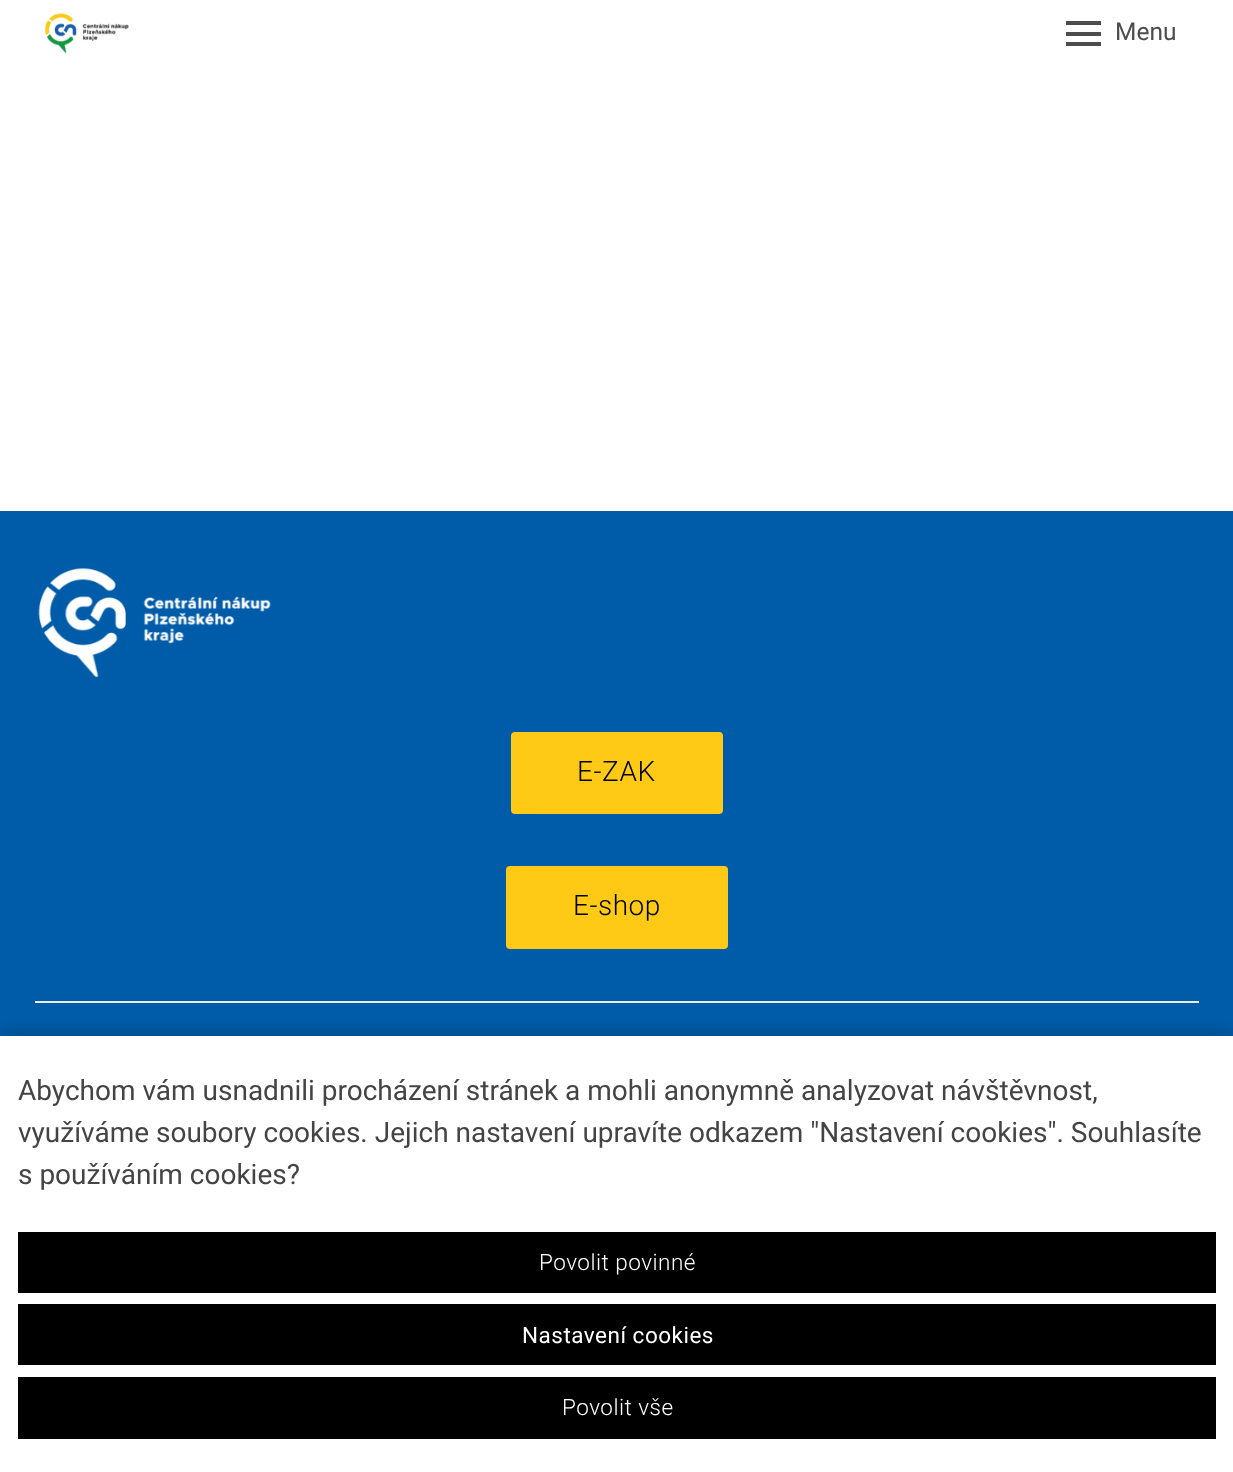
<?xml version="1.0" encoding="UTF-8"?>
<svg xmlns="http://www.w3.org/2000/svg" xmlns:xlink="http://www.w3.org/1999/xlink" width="1233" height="1472">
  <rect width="100%" height="100%" fill="#ffffff" />
  <image x="45" y="13" width="84" height="41" xlink:href="image1.png" />
  <rect x="1066" y="21" width="35" height="4" fill="#4d4d4d" />
  <rect x="1066" y="32" width="35" height="4" fill="#4d4d4d" />
  <rect x="1066" y="42" width="35" height="4" fill="#4d4d4d" />
  <rect y="511" width="1233" height="525" fill="#005ca9" />
  <image x="38" y="568" width="233" height="110" xlink:href="image2.png" />
  <rect x="511" y="732" width="212" height="82" rx="4" fill="#feca16" />
  <rect x="506" y="866" width="222" height="83" rx="4" fill="#feca16" />
  <rect x="35" y="1001" width="1164" height="2" fill="#ececec" />
  <rect y="1036" width="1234" height="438" fill="#000000" fill-opacity="0.25" filter="blur(10.5px)" />
  <rect y="1036" width="1233" height="436" fill="#ffffff" />
  <rect x="18" y="1232" width="1198" height="61" fill="#000000" />
  <rect x="18" y="1304" width="1198" height="61" fill="#000000" />
  <rect x="18" y="1377" width="1198" height="62" fill="#000000" />
  <text x="1115" y="40" style="font-family: Roboto; font-size: 24.5px; fill: #4d4d4d">Menu</text>
  <text x="577" y="781" style="font-family: Roboto; font-size: 28px; font-weight: 300; letter-spacing: 0.5px; fill: #000000">E-ZAK</text>
  <text x="573" y="915" style="font-family: Roboto; font-size: 28px; font-weight: 300; letter-spacing: 0.5px; fill: #000000">E-shop</text>
  <text x="18" y="1100" style="font-family: Roboto; font-size: 28px; fill: #444444">Abychom vám usnadnili procházení stránek a mohli anonymně analyzovat návštěvnost,</text>
  <text x="18" y="1142" style="font-family: Roboto; font-size: 28px; fill: #444444">využíváme soubory cookies. Jejich nastavení upravíte odkazem "Nastavení cookies". Souhlasíte</text>
  <text x="18" y="1184" style="font-family: Roboto; font-size: 28px; fill: #444444">s používáním cookies?</text>
  <text x="539" y="1270" style="font-family: Roboto; font-size: 22.5px; font-weight: 300; letter-spacing: 0.5px; fill: #ffffff">Povolit povinné</text>
  <text x="522" y="1343" style="font-family: Roboto; font-size: 22.5px; letter-spacing: 0.5px; fill: #ffffff">Nastavení cookies</text>
  <text x="562" y="1415" style="font-family: Roboto; font-size: 22.5px; font-weight: 300; letter-spacing: 0.5px; fill: #ffffff">Povolit vše</text>
</svg>
